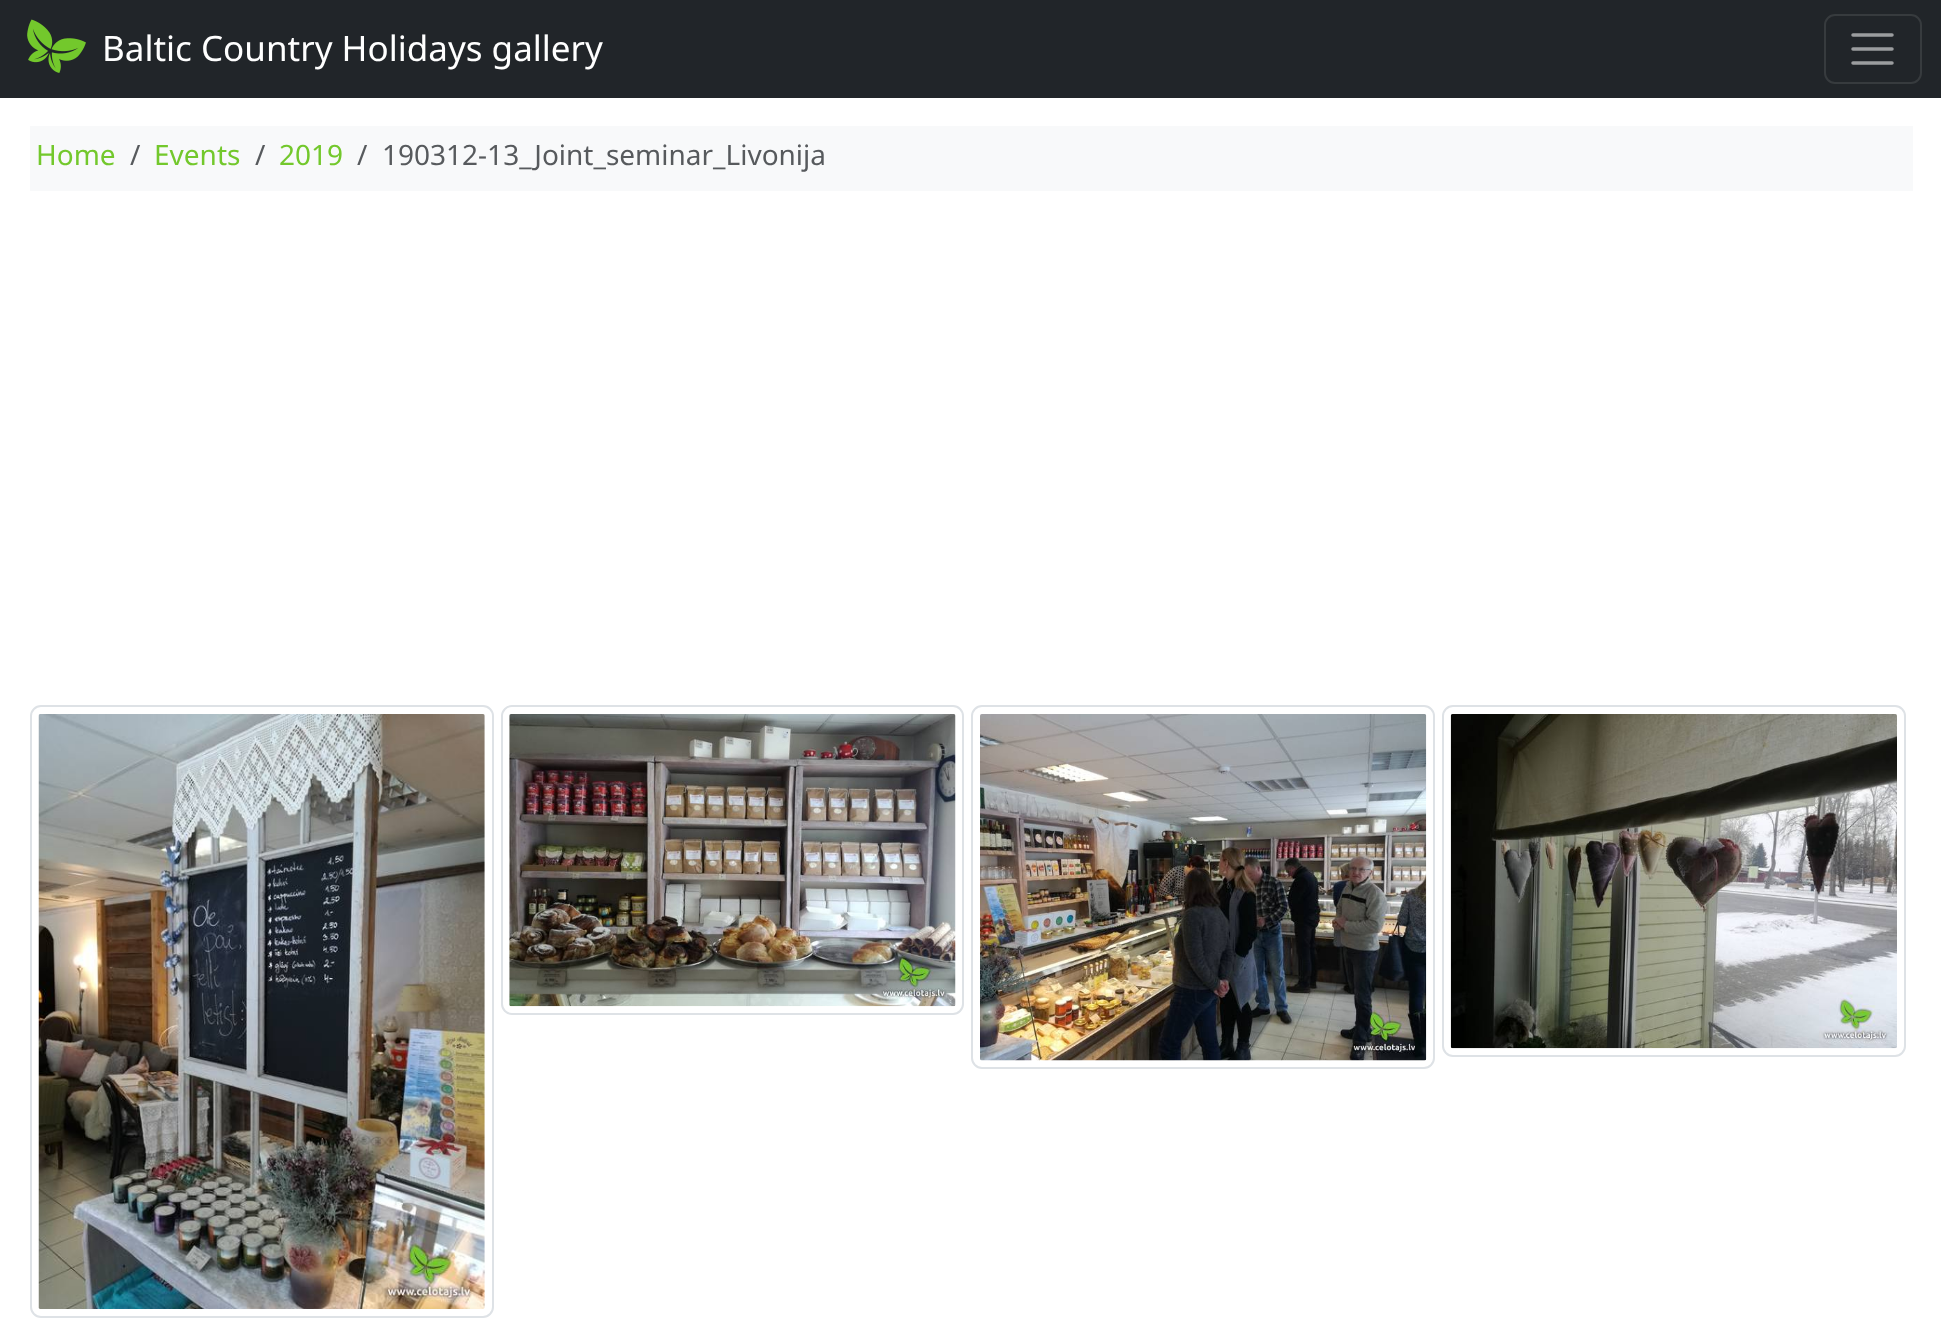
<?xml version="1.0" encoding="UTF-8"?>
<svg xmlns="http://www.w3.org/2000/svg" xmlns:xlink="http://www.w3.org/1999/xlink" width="1941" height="1325">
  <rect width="100%" height="100%" fill="#ffffff" />
  <rect width="1941" height="98" fill="#212529" />
  <image x="27" y="19" width="59" height="54" xlink:href="image1.png" />
  <rect x="1825" y="15" width="96" height="68" rx="10" fill="none" stroke="#373b3e" stroke-width="2" />
  <path d="M 1853 35 h 39 m -39 14 h 39 m -39 14 h 39" fill="none" stroke="#9b9d9f" stroke-width="3.5" stroke-linecap="round" />
  <rect x="30" y="126" width="1883" height="65" fill="#f8f9fa" />
  <rect x="31" y="706" width="462" height="611" rx="10" fill="none" stroke="#dee2e6" stroke-width="2" />
  <image x="38" y="714" width="447" height="595" xlink:href="image2.png" />
  <rect x="502" y="706" width="461" height="308" rx="10" fill="none" stroke="#dee2e6" stroke-width="2" />
  <image x="509" y="714" width="447" height="293" xlink:href="image3.png" />
  <rect x="972" y="706" width="462" height="362" rx="10" fill="none" stroke="#dee2e6" stroke-width="2" />
  <image x="980" y="714" width="447" height="347" xlink:href="image4.png" />
  <rect x="1443" y="706" width="462" height="350" rx="10" fill="none" stroke="#dee2e6" stroke-width="2" />
  <image x="1450" y="714" width="447" height="335" xlink:href="image5.png" />
  <text x="102" y="61" style="font-family: Noto Sans; font-size: 35px; fill: #ffffff">Baltic Country Holidays gallery</text>
  <text x="36" y="165" style="font-family: Noto Sans; font-size: 28px; fill: #73c82c">Home</text>
  <text x="130" y="165" style="font-family: Noto Sans; font-size: 28px; fill: #575a5d">/</text>
  <text x="154" y="165" style="font-family: Noto Sans; font-size: 28px; fill: #73c82c">Events</text>
  <text x="255" y="165" style="font-family: Noto Sans; font-size: 28px; fill: #575a5d">/</text>
  <text x="279" y="165" style="font-family: Noto Sans; font-size: 28px; fill: #73c82c">2019</text>
  <text x="357" y="165" style="font-family: Noto Sans; font-size: 28px; fill: #575a5d">/</text>
  <text x="382" y="165" style="font-family: Noto Sans; font-size: 28px; fill: #575a5d">190312-13_Joint_seminar_Livonija</text>
</svg>
